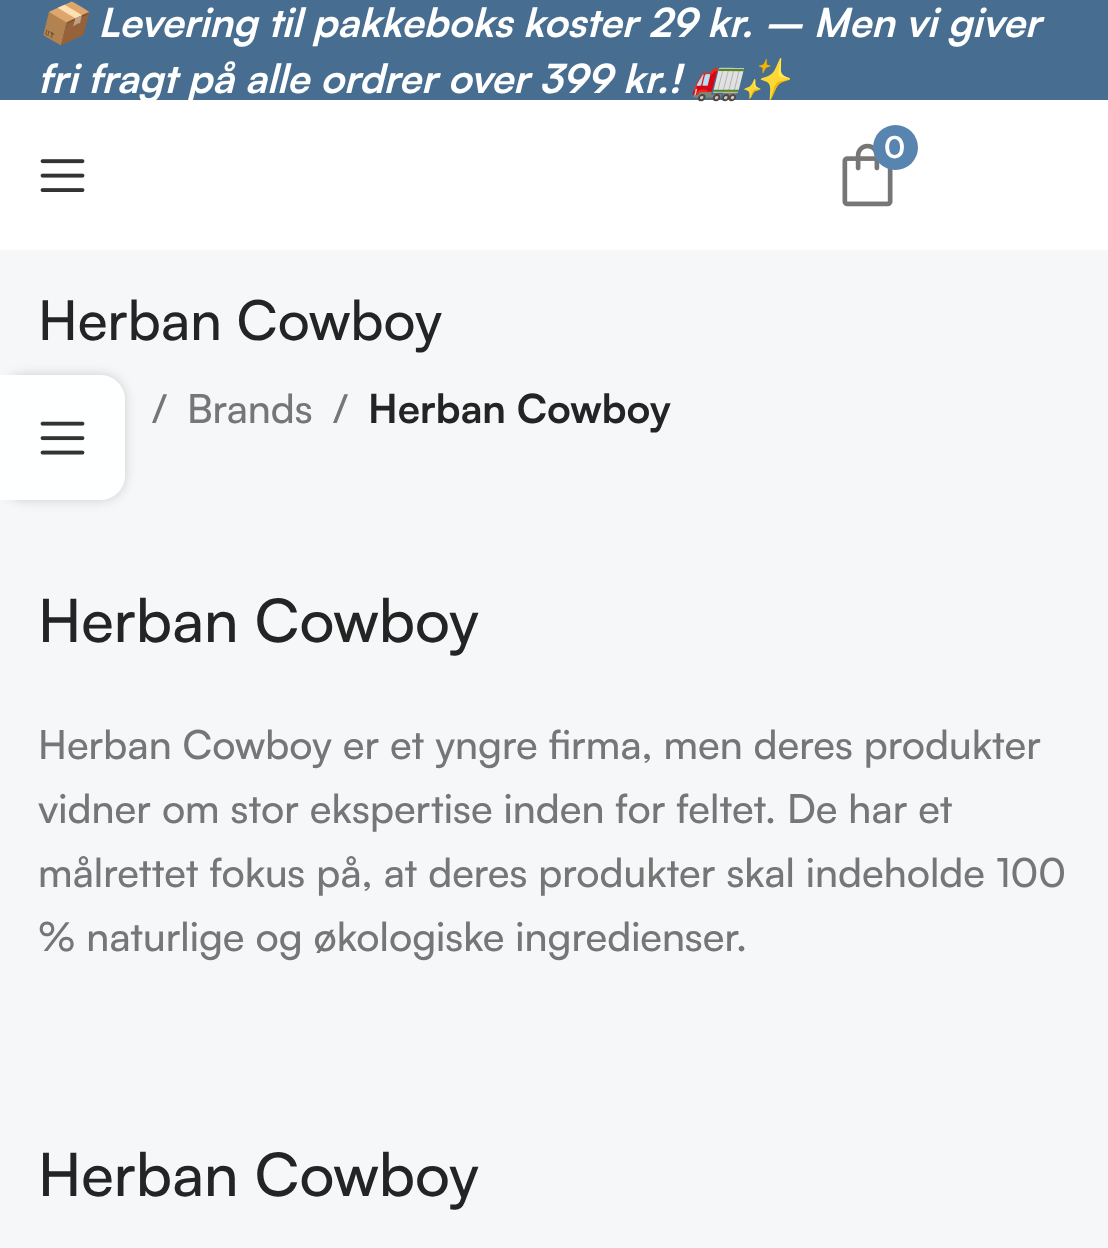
<?xml version="1.0" encoding="UTF-8"?>
<svg xmlns="http://www.w3.org/2000/svg" xmlns:xlink="http://www.w3.org/1999/xlink" width="1108" height="1248">
  <defs>
    <clipPath id="clip1"><path d="M 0 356 h 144 v 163 h -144 z m 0 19 h 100 c 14 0 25 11 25 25 v 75 c 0 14 -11 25 -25 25 h -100 z" clip-rule="evenodd" /></clipPath>
  </defs>
  <rect width="100%" height="100%" fill="#ffffff" />
  <rect width="1108" height="100" fill="#476d90" />
  <image x="842" y="143" width="51" height="64" xlink:href="image1.png" />
  <circle cx="895.5" cy="147.5" r="22.5" fill="#5885af" />
  <image x="40" y="159" width="45" height="33" xlink:href="image2.png" />
  <rect y="250" width="1108" height="998" fill="#f5f7f8" />
  <g clip-path="url(#clip1)">
    <rect y="375" width="125" height="125" rx="25" fill="#000000" fill-opacity="0.17" filter="blur(6px)" />
  </g>
  <path d="M 0 375 h 100 c 14 0 25 11 25 25 v 75 c 0 14 -11 25 -25 25 h -100 z" fill="#ffffff" fill-opacity="0.9" />
  <image x="40" y="421" width="45" height="34" xlink:href="image3.png" />
  <text x="38" y="37" style="font-family: Noto Color Emoji; font-size: 40px; font-style: italic; fill: #ffffff">📦</text>
  <text x="98" y="37" style="font-family: Satoshi; font-size: 40px; font-weight: bold; font-style: italic; fill: #ffffff">Levering til pakkeboks koster 29 kr. – Men vi giver</text>
  <text x="38" y="93" style="font-family: Satoshi; font-size: 40px; font-weight: bold; font-style: italic; fill: #ffffff">fri fragt på alle ordrer over 399 kr.!</text>
  <text x="691" y="93" style="font-family: Noto Color Emoji; font-size: 40px; font-style: italic; fill: #ffffff">🚛✨</text>
  <text x="884" y="158" style="font-family: Satoshi; font-size: 30px; font-weight: bold; fill: #ffffff">0</text>
  <text x="38" y="340" style="font-family: Satoshi; font-size: 55px; font-weight: 500; fill: #242424">Herban Cowboy</text>
  <text x="152" y="423" style="font-family: Satoshi; font-size: 40px; font-weight: 500; fill: #767676">/</text>
  <text x="187" y="423" style="font-family: Satoshi; font-size: 40px; font-weight: 500; fill: #767676">Brands</text>
  <text x="333" y="423" style="font-family: Satoshi; font-size: 40px; font-weight: 500; fill: #767676">/</text>
  <text x="368" y="423" style="font-family: Satoshi; font-size: 40px; font-weight: bold; fill: #242424">Herban Cowboy</text>
  <text x="38" y="642" style="font-family: Satoshi; font-size: 60px; font-weight: 500; fill: #242424">Herban Cowboy</text>
  <text x="38" y="759" style="font-family: Satoshi; font-size: 40px; font-weight: 500; fill: #767676">Herban Cowboy er et yngre firma, men deres produkter</text>
  <text x="38" y="823" style="font-family: Satoshi; font-size: 40px; font-weight: 500; fill: #767676">vidner om stor ekspertise inden for feltet. De har et</text>
  <text x="38" y="887" style="font-family: Satoshi; font-size: 40px; font-weight: 500; fill: #767676">målrettet fokus på, at deres produkter skal indeholde 100</text>
  <text x="38" y="951" style="font-family: Satoshi; font-size: 40px; font-weight: 500; fill: #767676">% naturlige og økologiske ingredienser.</text>
  <text x="38" y="1196" style="font-family: Satoshi; font-size: 60px; font-weight: 500; fill: #242424">Herban Cowboy</text>
</svg>
